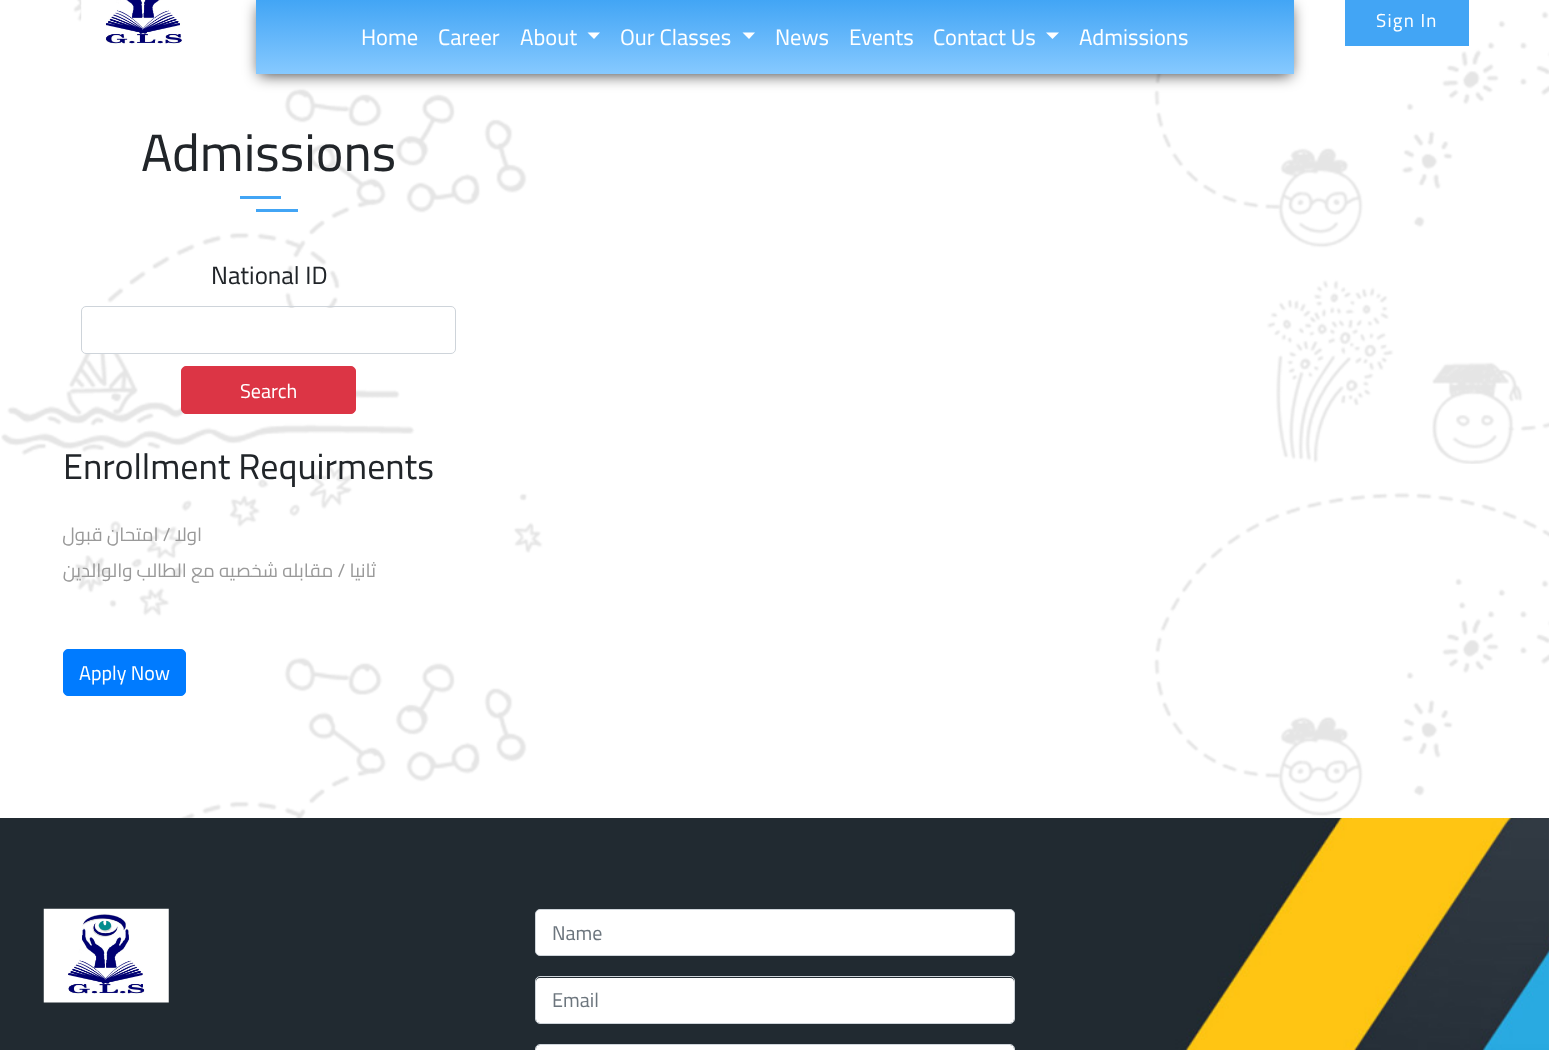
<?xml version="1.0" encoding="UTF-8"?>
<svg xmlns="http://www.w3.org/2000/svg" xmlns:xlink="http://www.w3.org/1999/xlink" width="1549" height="1050">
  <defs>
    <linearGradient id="g1" gradientUnits="userSpaceOnUse" x1="775" y1="0" x2="775" y2="74"><stop offset="0" stop-color="#42a5f5" /><stop offset="1" stop-color="#86c9ff" /></linearGradient>
  </defs>
  <rect width="100%" height="100%" fill="#ffffff" />
  <image x="1" y="0" width="1548" height="997" xlink:href="image1.png" />
  <image x="81" y="0" width="102" height="47" xlink:href="image2.png" />
  <rect x="1345" width="124" height="46" fill="#42a5f5" />
  <rect x="259" y="6" width="1032" height="69" fill="#000000" fill-opacity="0.75" filter="blur(7.5px)" />
  <rect x="256" width="1038" height="74" fill="url(#g1)" />
  <path d="M 587.5 32.5 h 12.5 l -6 6.5 z" fill="#ffffff" />
  <path d="M 742.5 32.5 h 12.5 l -6 6.5 z" fill="#ffffff" />
  <path d="M 1046 32.5 h 13 l -6.5 6.5 z" fill="#ffffff" />
  <rect x="240" y="196" width="41" height="3" fill="#42a5f5" />
  <rect x="256" y="209" width="42" height="3" fill="#42a5f5" />
  <rect x="83" y="308" width="372" height="45" rx="4" fill="#ffffff" />
  <rect x="81.5" y="306.5" width="374" height="47" rx="4.5" fill="none" stroke="#ced4da" />
  <rect x="181.5" y="366.5" width="174" height="47" rx="4.5" fill="#dc3545" stroke="#dc3545" />
  <rect x="63.5" y="649.5" width="122" height="46" rx="4.5" fill="#007bff" stroke="#007bff" />
  <image x="0" y="818" width="1549" height="232" xlink:href="image3.png" />
  <image x="43" y="908" width="126" height="95" xlink:href="image4.png" />
  <rect x="535.5" y="909.5" width="479" height="46" rx="4.5" fill="#ffffff" stroke="#ced4da" />
  <rect x="536" y="978" width="478" height="45" rx="4" fill="#ffffff" />
  <rect x="535.5" y="976.5" width="479" height="47" rx="4.5" fill="none" stroke="#ced4da" />
  <rect x="536" y="1045" width="478" height="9" rx="4" fill="#ffffff" />
  <rect x="535.5" y="1044.5" width="479" height="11" rx="4.5" fill="none" stroke="#ced4da" />
  <text x="1376" y="27" style="font-family: Cairo; font-size: 18.75px; letter-spacing: 1.25px; fill: #ffffff">Sign In</text>
  <text x="361" y="45" style="font-family: Cairo; font-size: 22.5px; fill: #ffffff">Home</text>
  <text x="438" y="45" style="font-family: Cairo; font-size: 22.5px; fill: #ffffff">Career</text>
  <text x="520" y="45" style="font-family: Cairo; font-size: 22.5px; fill: #ffffff">About</text>
  <text x="620" y="45" style="font-family: Cairo; font-size: 22.5px; fill: #ffffff">Our Classes</text>
  <text x="775" y="45" style="font-family: Cairo; font-size: 22.5px; fill: #ffffff">News</text>
  <text x="849" y="45" style="font-family: Cairo; font-size: 22.5px; fill: #ffffff">Events</text>
  <text x="933" y="45" style="font-family: Cairo; font-size: 22.5px; fill: #ffffff">Contact Us</text>
  <text x="1079" y="45" style="font-family: Cairo; font-size: 22.5px; fill: #ffffff">Admissions</text>
  <text x="141" y="171" style="font-family: Cairo; font-size: 52.5px; fill: #212529">Admissions</text>
  <text x="211" y="284" style="font-family: Cairo; font-size: 25px; fill: #212529">National ID</text>
  <text x="240" y="398" style="font-family: Cairo; font-size: 20px; fill: #ffffff">Search</text>
  <text x="63" y="479" style="font-family: Cairo; font-size: 36px; fill: #212529">Enrollment Requirments</text>
  <text x="202" y="541" style="font-family: Cairo; font-size: 18.75px; direction: rtl; fill: #999999">اولا / امتحان قبول</text>
  <text x="376" y="577" style="font-family: Cairo; font-size: 18.75px; direction: rtl; fill: #999999">ثانيا / مقابله شخصيه مع الطالب والوالدين</text>
  <text x="79" y="680" style="font-family: Cairo; font-size: 20px; fill: #ffffff">Apply Now</text>
  <text x="552" y="940" style="font-family: Cairo; font-size: 20px; fill: #6c757d">Name</text>
  <text x="552" y="1007" style="font-family: Cairo; font-size: 20px; fill: #6c757d">Email</text>
</svg>
